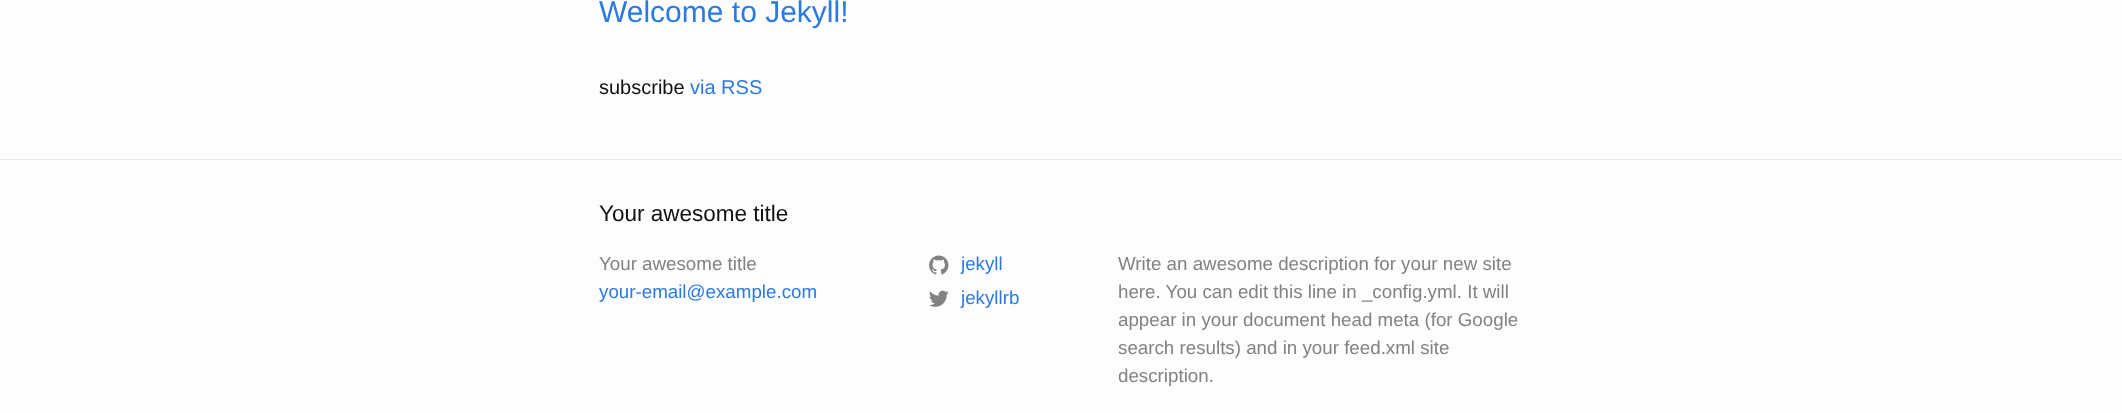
<?xml version="1.0" encoding="UTF-8"?>
<svg xmlns="http://www.w3.org/2000/svg" xmlns:xlink="http://www.w3.org/1999/xlink" width="2122" height="413">
  <rect width="100%" height="100%" fill="#fdfdfd" />
  <rect y="159" width="2122" height="1" fill="#e8e8e8" />
  <image x="929" y="255" width="20" height="20" xlink:href="image1.png" />
  <image x="929" y="290" width="20" height="17" xlink:href="image2.png" />
  <text x="599" y="22" style="font-family: Liberation Sans; font-size: 30px; fill: #2a7ae2">Welcome to Jekyll!</text>
  <text x="599" y="94" style="font-family: Liberation Sans; font-size: 20px; fill: #111111">subscribe</text>
  <text x="690" y="94" style="font-family: Liberation Sans; font-size: 20px; fill: #2a7ae2">via RSS</text>
  <text x="599" y="221" style="font-family: Liberation Sans; font-size: 22.5px; fill: #111111">Your awesome title</text>
  <text x="599" y="270" style="font-family: Liberation Sans; font-size: 18.75px; fill: #828282">Your awesome title</text>
  <text x="599" y="298" style="font-family: Liberation Sans; font-size: 18.75px; fill: #2a7ae2">your-email@example.com</text>
  <text x="961" y="270" style="font-family: Liberation Sans; font-size: 18.75px; fill: #2a7ae2">jekyll</text>
  <text x="961" y="304" style="font-family: Liberation Sans; font-size: 18.75px; fill: #2a7ae2">jekyllrb</text>
  <text x="1118" y="270" style="font-family: Liberation Sans; font-size: 18.75px; fill: #828282">Write an awesome description for your new site</text>
  <text x="1118" y="298" style="font-family: Liberation Sans; font-size: 18.75px; fill: #828282">here. You can edit this line in _config.yml. It will</text>
  <text x="1118" y="326" style="font-family: Liberation Sans; font-size: 18.75px; fill: #828282">appear in your document head meta (for Google</text>
  <text x="1118" y="354" style="font-family: Liberation Sans; font-size: 18.75px; fill: #828282">search results) and in your feed.xml site</text>
  <text x="1118" y="382" style="font-family: Liberation Sans; font-size: 18.75px; fill: #828282">description.</text>
</svg>
